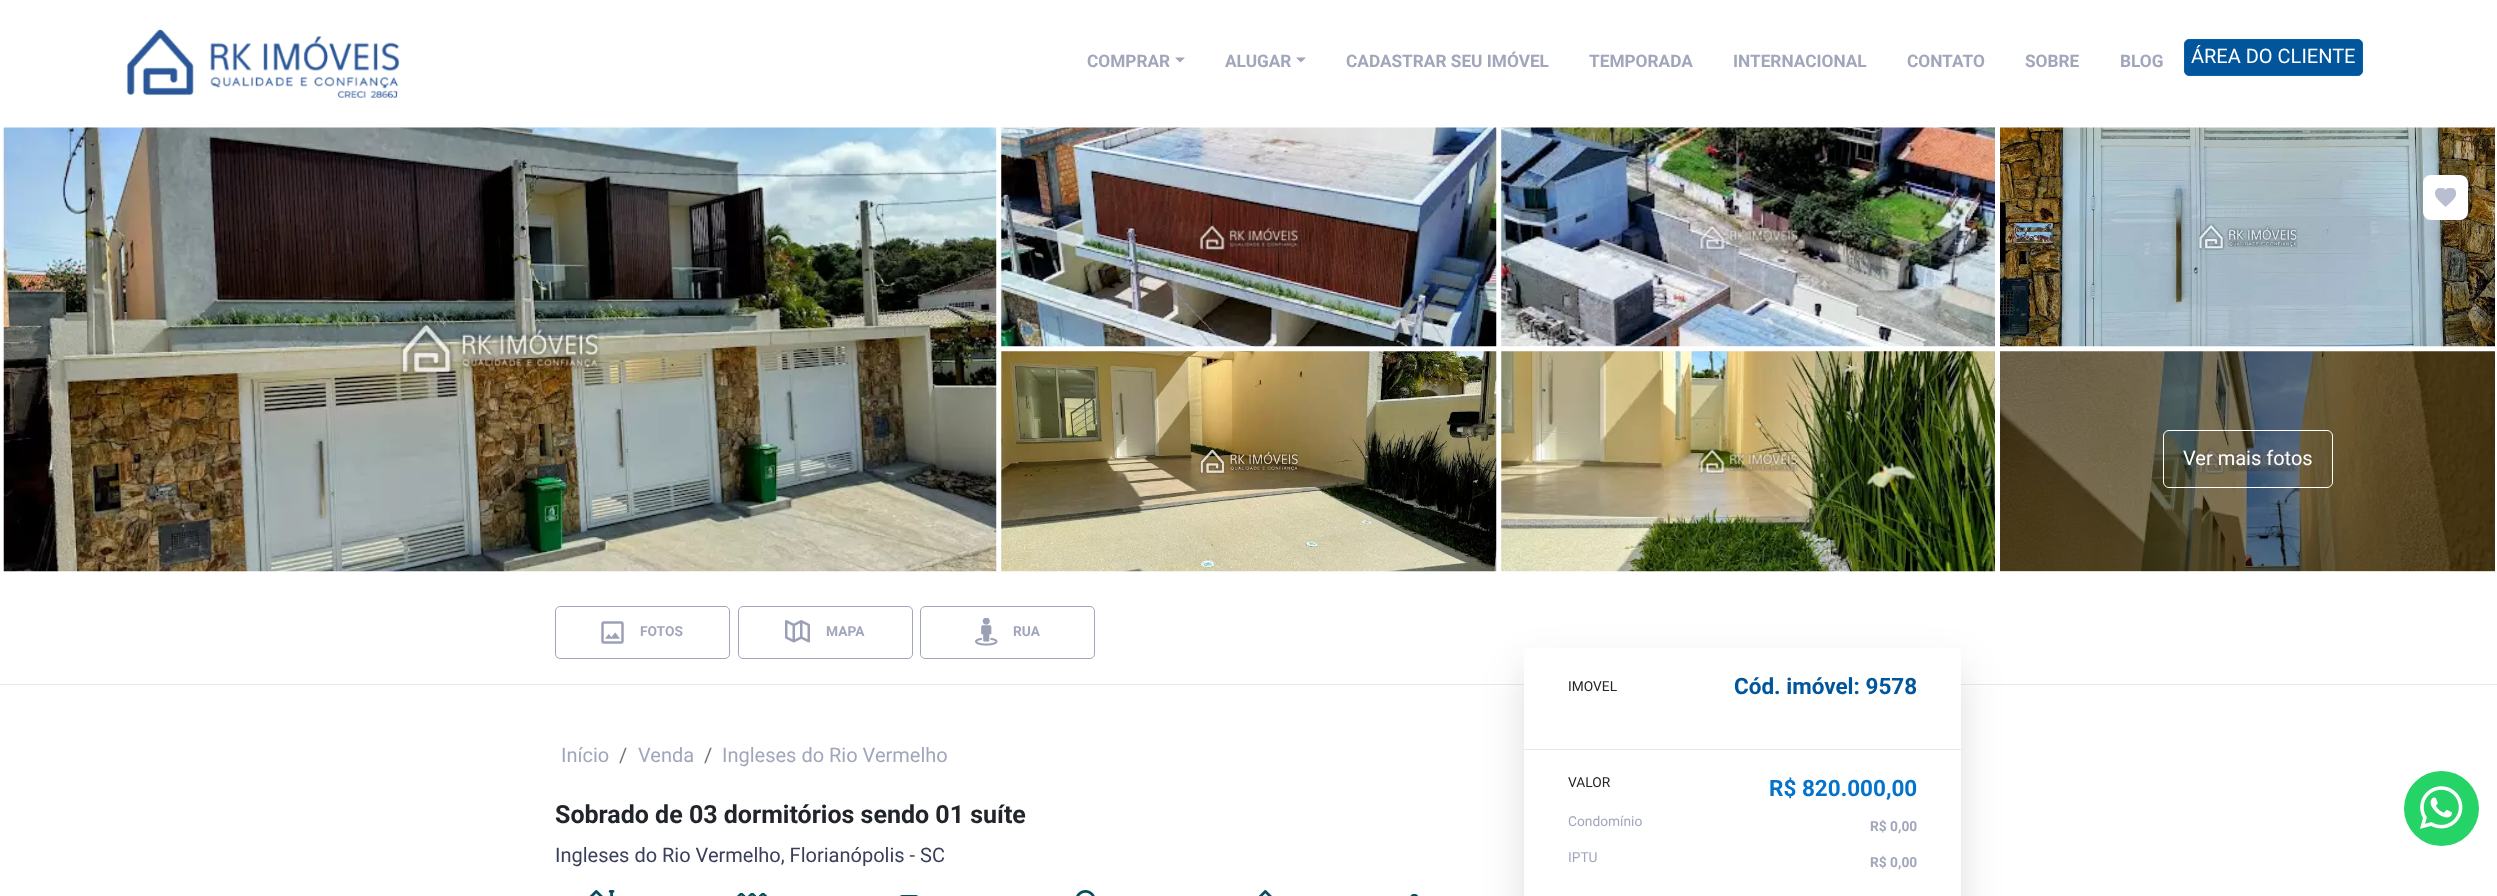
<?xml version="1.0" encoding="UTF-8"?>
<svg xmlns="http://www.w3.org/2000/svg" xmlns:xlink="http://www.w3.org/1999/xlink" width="2497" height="896">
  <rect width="100%" height="100%" fill="#ffffff" />
  <image x="126" y="29" width="274" height="69" xlink:href="image1.png" />
  <path d="M 1175 57.5 h 10 l -5 5 z" fill="#a1a6bb" />
  <path d="M 1296 57.5 h 10 l -5 5 z" fill="#a1a6bb" />
  <rect x="2184.5" y="39.5" width="178" height="36" rx="4.5" fill="#00559b" stroke="#0463b1" />
  <image x="2000" y="127" width="495" height="220" xlink:href="image6.png" />
  <rect x="2423" y="175" width="45" height="45" rx="8" fill="#ffffff" />
  <image x="2435" y="188" width="21" height="19" xlink:href="image2.png" />
  <image x="2" y="127" width="995" height="445" xlink:href="image3.png" />
  <image x="1001" y="127" width="496" height="220" xlink:href="image4.png" />
  <image x="1501" y="127" width="494" height="220" xlink:href="image5.png" />
  <image x="1001" y="351" width="496" height="221" xlink:href="image7.png" />
  <image x="1501" y="351" width="494" height="221" xlink:href="image8.png" />
  <image x="2000" y="351" width="495" height="221" xlink:href="image9.png" />
  <rect x="2163.5" y="430.5" width="169" height="57" rx="5.5" fill="none" stroke="#ffffff" />
  <rect x="555.5" y="606.5" width="174" height="52" rx="4.5" fill="none" stroke="#a1a6bb" />
  <image x="601" y="621" width="23" height="23" xlink:href="image10.png" />
  <rect x="738.5" y="606.5" width="174" height="52" rx="4.5" fill="none" stroke="#a1a6bb" />
  <image x="785" y="620" width="25" height="23" xlink:href="image11.png" />
  <rect x="920.5" y="606.5" width="174" height="52" rx="4.5" fill="none" stroke="#a1a6bb" />
  <image x="975" y="618" width="23" height="28" xlink:href="image12.png" />
  <image x="589" y="890" width="26" height="6" xlink:href="image13.png" />
  <image x="737" y="893" width="30" height="3" xlink:href="image14.png" />
  <image x="900" y="895" width="18" height="1" xlink:href="image15.png" />
  <image x="1076" y="890" width="19" height="6" xlink:href="image16.png" />
  <image x="1258" y="890" width="14" height="6" xlink:href="image17.png" />
  <image x="1410" y="894" width="8" height="2" xlink:href="image18.png" />
  <rect y="684" width="2497" height="1" fill="#e7e8ef" />
  <rect x="1524" y="668" width="437" height="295" rx="5" fill="#222328" fill-opacity="0.15" filter="blur(20.5px)" />
  <rect x="1524" y="648" width="437" height="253" rx="5" fill="#ffffff" />
  <rect x="1524" y="749" width="437" height="1" fill="#e7e8ef" />
  <circle cx="2441.5" cy="808.5" r="37.5" fill="#25d366" />
  <image x="2420" y="786" width="43" height="43" xlink:href="image19.png" />
  <text x="1087" y="67" style="font-family: Roboto; font-size: 17.25px; font-weight: bold; fill: #a1a6bb">COMPRAR</text>
  <text x="1225" y="67" style="font-family: Roboto; font-size: 17.25px; font-weight: bold; fill: #a1a6bb">ALUGAR</text>
  <text x="1346" y="67" style="font-family: Roboto; font-size: 17.25px; font-weight: bold; fill: #a1a6bb">CADASTRAR SEU IMÓVEL</text>
  <text x="1589" y="67" style="font-family: Roboto; font-size: 17.25px; font-weight: bold; fill: #a1a6bb">TEMPORADA</text>
  <text x="1733" y="67" style="font-family: Roboto; font-size: 17.25px; font-weight: bold; fill: #a1a6bb">INTERNACIONAL</text>
  <text x="1907" y="67" style="font-family: Roboto; font-size: 17.25px; font-weight: bold; fill: #a1a6bb">CONTATO</text>
  <text x="2025" y="67" style="font-family: Roboto; font-size: 17.25px; font-weight: bold; fill: #a1a6bb">SOBRE</text>
  <text x="2120" y="67" style="font-family: Roboto; font-size: 17.25px; font-weight: bold; fill: #a1a6bb">BLOG</text>
  <text x="2191" y="63" style="font-family: Roboto; font-size: 20px; fill: #ffffff">ÁREA DO CLIENTE</text>
  <text x="2183" y="465" style="font-family: Roboto; font-size: 20px; fill: #ffffff">Ver mais fotos</text>
  <text x="640" y="636" style="font-family: Roboto; font-size: 13.75px; font-weight: bold; fill: #a1a6bb">FOTOS</text>
  <text x="826" y="636" style="font-family: Roboto; font-size: 13.75px; font-weight: bold; fill: #a1a6bb">MAPA</text>
  <text x="1013" y="636" style="font-family: Roboto; font-size: 13.75px; font-weight: bold; fill: #a1a6bb">RUA</text>
  <text x="561" y="762" style="font-family: Roboto; font-size: 20px; fill: #a1a6bb">Início</text>
  <text x="619" y="762" style="font-family: Roboto; font-size: 20px; fill: #6c757d">/</text>
  <text x="638" y="762" style="font-family: Roboto; font-size: 20px; fill: #a1a6bb">Venda</text>
  <text x="704" y="762" style="font-family: Roboto; font-size: 20px; fill: #6c757d">/</text>
  <text x="722" y="762" style="font-family: Roboto; font-size: 20px; fill: #a1a6bb">Ingleses do Rio Vermelho</text>
  <text x="555" y="823" style="font-family: Roboto; font-size: 25px; font-weight: bold; fill: #212529">Sobrado de 03 dormitórios sendo 01 suíte</text>
  <text x="555" y="862" style="font-family: Roboto; font-size: 20px; fill: #3a405b">Ingleses do Rio Vermelho, Florianópolis - SC</text>
  <text x="1568" y="691" style="font-family: Roboto; font-size: 13.75px; fill: #212529">IMOVEL</text>
  <text x="1734" y="694" style="font-family: Roboto; font-size: 22.5px; font-weight: bold; fill: #00559b">Cód. imóvel: 9578</text>
  <text x="1568" y="787" style="font-family: Roboto; font-size: 13.75px; fill: #212529">VALOR</text>
  <text x="1769" y="796" style="font-family: Roboto; font-size: 22.5px; font-weight: bold; fill: #0573cc">R$ 820.000,00</text>
  <text x="1568" y="826" style="font-family: Roboto; font-size: 13.75px; fill: #a1a6bb">Condomínio</text>
  <text x="1870" y="831" style="font-family: Roboto; font-size: 13.75px; font-weight: bold; fill: #a1a6bb">R$ 0,00</text>
  <text x="1568" y="862" style="font-family: Roboto; font-size: 13.75px; fill: #a1a6bb">IPTU</text>
  <text x="1870" y="867" style="font-family: Roboto; font-size: 13.75px; font-weight: bold; fill: #a1a6bb">R$ 0,00</text>
</svg>
